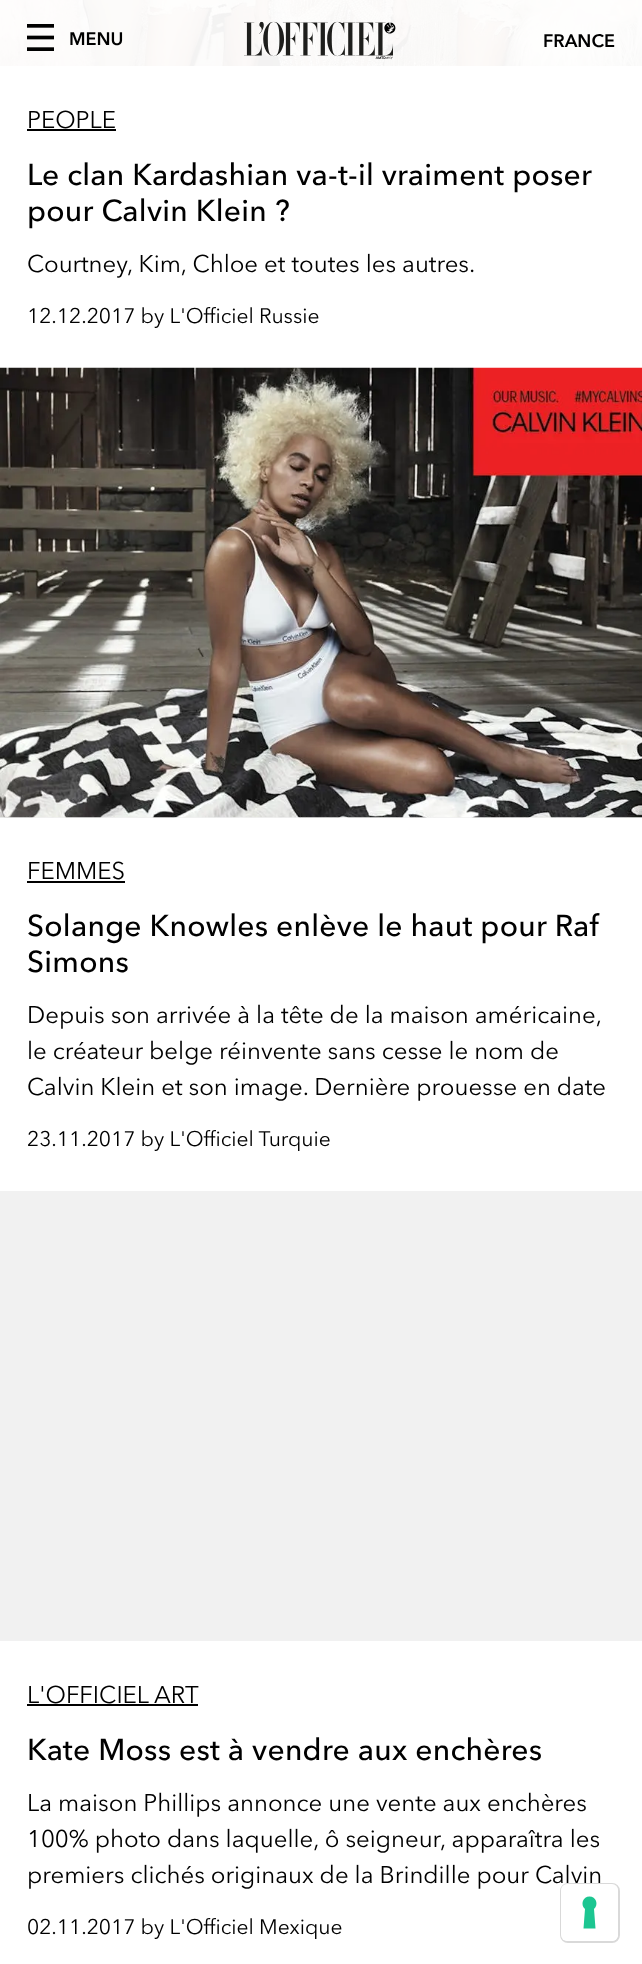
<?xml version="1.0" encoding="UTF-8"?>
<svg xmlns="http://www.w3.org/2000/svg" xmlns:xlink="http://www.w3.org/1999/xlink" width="642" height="1964">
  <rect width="100%" height="100%" fill="#ffffff" />
  <image x="0" y="0" width="642" height="66" xlink:href="image3.png" />
  <image x="27" y="24" width="27" height="27" xlink:href="image1.png" />
  <image x="244" y="21" width="152" height="39" xlink:href="image2.png" />
  <rect x="27" y="129" width="89" height="2" fill="#000000" />
  <rect y="817" width="642" height="1" fill="#f1f1f1" />
  <image x="0" y="367" width="642" height="451" xlink:href="image4.png" />
  <rect x="27" y="881" width="98" height="2" fill="#000000" />
  <rect y="1191" width="642" height="450" fill="#f1f1f1" />
  <rect x="27" y="1704" width="171" height="2" fill="#000000" />
  <text x="69" y="45" style="font-family: Avenir Next; font-size: 18px; font-weight: bold; fill: #000000">MENU</text>
  <text x="543" y="47" style="font-family: Avenir Next; font-size: 18px; font-weight: bold; fill: #000000">FRANCE</text>
  <text x="27" y="128" style="font-family: Avenir Next; font-size: 24px; fill: #000000">PEOPLE</text>
  <text x="27" y="185" style="font-family: Avenir Next; font-size: 30px; font-weight: 500; letter-spacing: 0.25px; fill: #000000">Le clan Kardashian va-t-il vraiment poser</text>
  <text x="27" y="221" style="font-family: Avenir Next; font-size: 30px; font-weight: 500; letter-spacing: 0.25px; fill: #000000">pour Calvin Klein ?</text>
  <text x="27" y="272" style="font-family: Avenir Next; font-size: 24px; fill: #000000">Courtney, Kim, Chloe et toutes les autres.</text>
  <text x="27" y="323" style="font-family: Avenir Next; font-size: 21px; fill: #000000">12.12.2017 by L'Officiel Russie</text>
  <text x="27" y="879" style="font-family: Avenir Next; font-size: 24px; fill: #000000">FEMMES</text>
  <text x="27" y="936" style="font-family: Avenir Next; font-size: 30px; font-weight: 500; letter-spacing: 0.25px; fill: #000000">Solange Knowles enlève le haut pour Raf</text>
  <text x="27" y="972" style="font-family: Avenir Next; font-size: 30px; font-weight: 500; letter-spacing: 0.25px; fill: #000000">Simons</text>
  <text x="27" y="1023" style="font-family: Avenir Next; font-size: 24px; fill: #000000">Depuis son arrivée à la tête de la maison américaine,</text>
  <text x="27" y="1059" style="font-family: Avenir Next; font-size: 24px; fill: #000000">le créateur belge réinvente sans cesse le nom de</text>
  <text x="27" y="1095" style="font-family: Avenir Next; font-size: 24px; fill: #000000">Calvin Klein et son image. Dernière prouesse en date</text>
  <text x="27" y="1146" style="font-family: Avenir Next; font-size: 21px; fill: #000000">23.11.2017 by L'Officiel Turquie</text>
  <text x="27" y="1703" style="font-family: Avenir Next; font-size: 24px; fill: #000000">L'OFFICIEL ART</text>
  <text x="27" y="1760" style="font-family: Avenir Next; font-size: 30px; font-weight: 500; letter-spacing: 0.25px; fill: #000000">Kate Moss est à vendre aux enchères</text>
  <text x="27" y="1811" style="font-family: Avenir Next; font-size: 24px; fill: #000000">La maison Phillips annonce une vente aux enchères</text>
  <text x="27" y="1847" style="font-family: Avenir Next; font-size: 24px; fill: #000000">100% photo dans laquelle, ô seigneur, apparaîtra les</text>
  <text x="27" y="1883" style="font-family: Avenir Next; font-size: 24px; fill: #000000">premiers clichés originaux de la Brindille pour Calvin</text>
  <text x="27" y="1934" style="font-family: Avenir Next; font-size: 21px; fill: #000000">02.11.2017 by L'Officiel Mexique</text>
  <rect x="561" y="1884" width="58" height="58" rx="7" fill="none" stroke="#d9d9d9" stroke-width="2" />
  <rect x="561" y="1884" width="57" height="57" rx="6" fill="#ffffff" />
  <path d="M 589.5 1896.5 c 6.5 0 9.5 8 4.5 12.5 l 1.5 19.5 h -12 l 1.5 -19.5 c -5 -4.5 -2 -12.5 4.5 -12.5 z" fill="#1cc691" fill-rule="evenodd" />
</svg>
